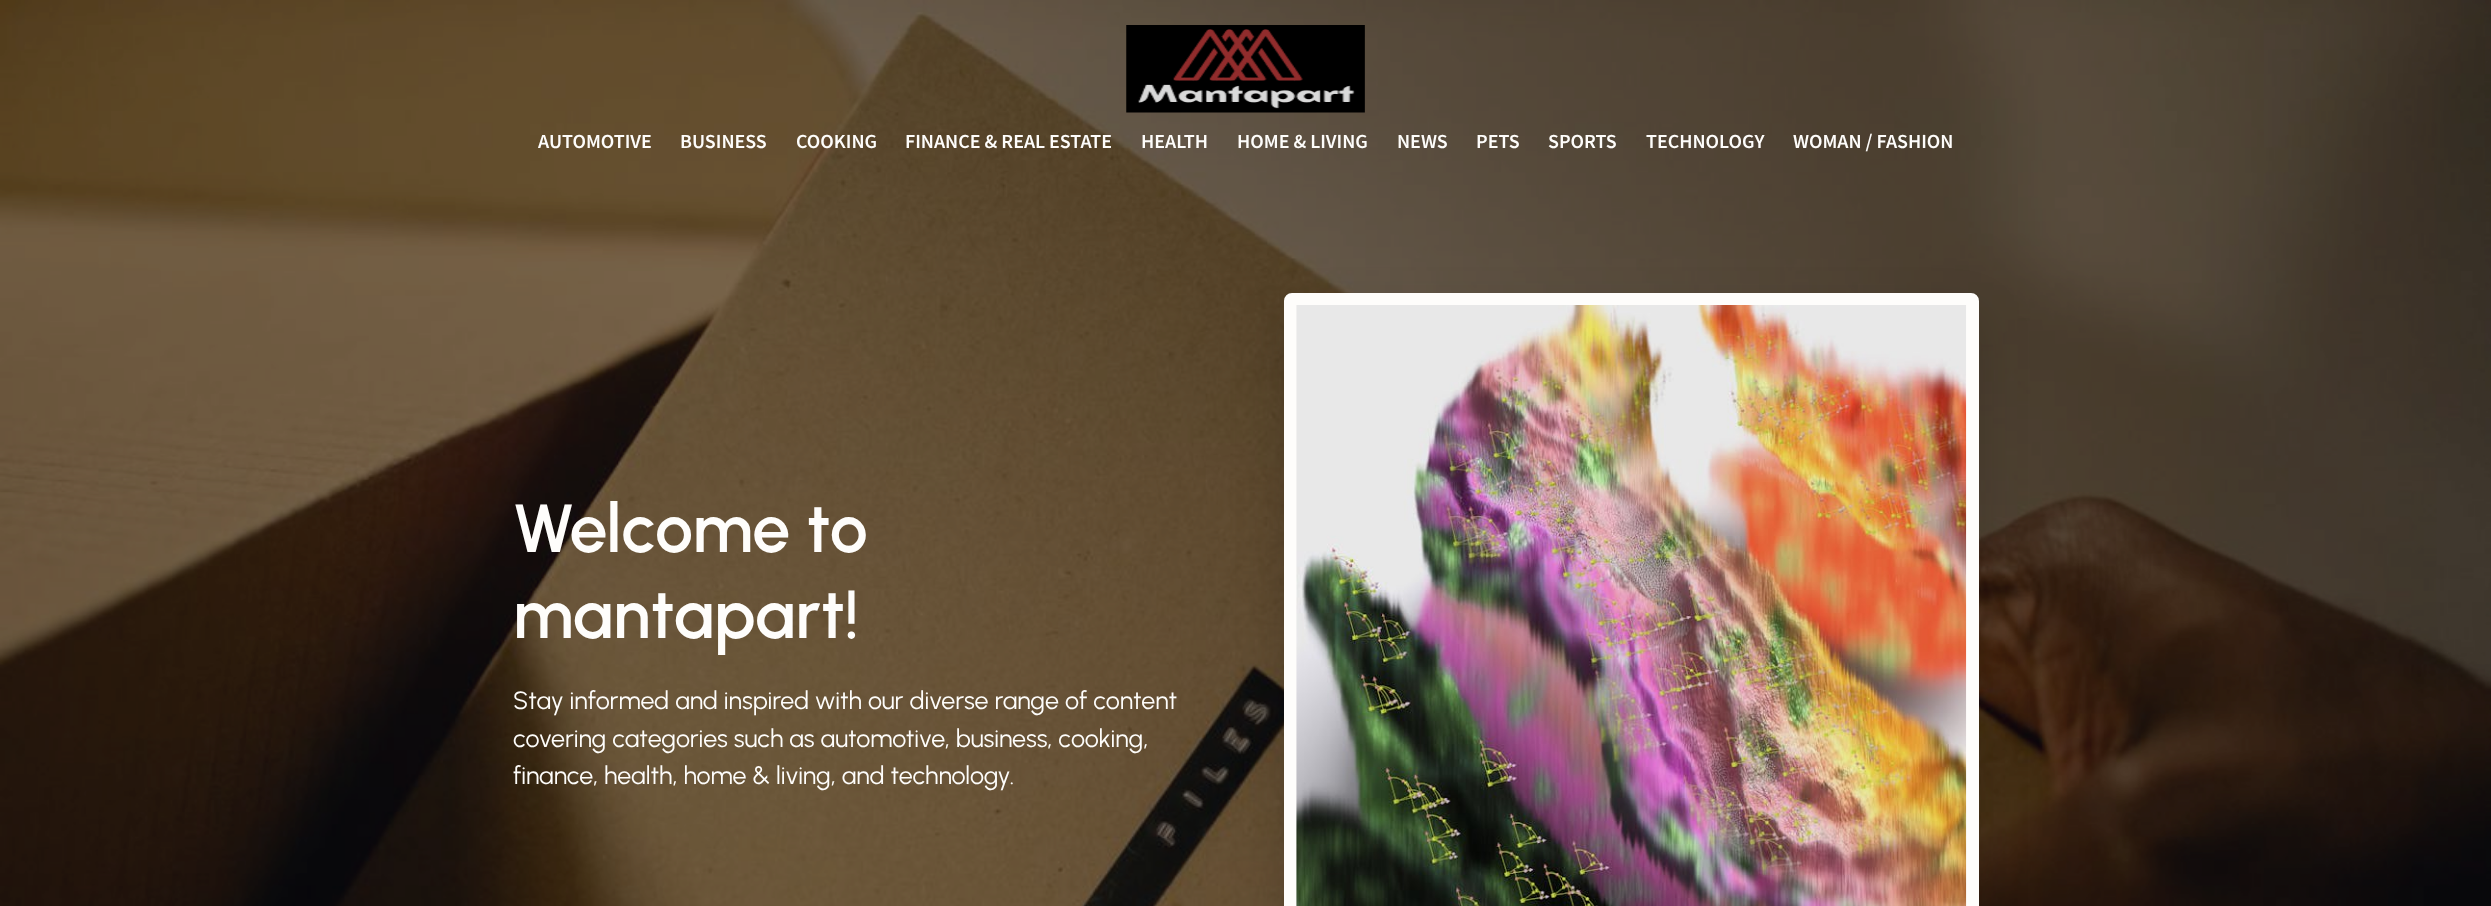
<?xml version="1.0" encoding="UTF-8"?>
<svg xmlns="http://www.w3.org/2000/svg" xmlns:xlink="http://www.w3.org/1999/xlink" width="2491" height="906">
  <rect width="100%" height="100%" fill="#ffffff" />
  <image x="0" y="0" width="2491" height="906" xlink:href="image2.png" />
  <image x="1126" y="25" width="239" height="88" xlink:href="image1.png" />
  <rect x="1284" y="316" width="695" height="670" rx="8" fill="#000000" fill-opacity="0.16" filter="blur(24px)" />
  <rect x="1290.5" y="299.5" width="682" height="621" rx="1.5" fill="none" stroke="#fefdfb" stroke-width="13" />
  <image x="1296" y="305" width="671" height="601" xlink:href="image3.png" />
  <text x="538" y="148" style="font-family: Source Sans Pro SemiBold; font-size: 20px; font-weight: 600; fill: #fefdfb">AUTOMOTIVE</text>
  <text x="680" y="148" style="font-family: Source Sans Pro SemiBold; font-size: 20px; font-weight: 600; fill: #fefdfb">BUSINESS</text>
  <text x="796" y="148" style="font-family: Source Sans Pro SemiBold; font-size: 20px; font-weight: 600; fill: #fefdfb">COOKING</text>
  <text x="905" y="148" style="font-family: Source Sans Pro SemiBold; font-size: 20px; font-weight: 600; fill: #fefdfb">FINANCE &amp; REAL ESTATE</text>
  <text x="1141" y="148" style="font-family: Source Sans Pro SemiBold; font-size: 20px; font-weight: 600; fill: #fefdfb">HEALTH</text>
  <text x="1237" y="148" style="font-family: Source Sans Pro SemiBold; font-size: 20px; font-weight: 600; fill: #fefdfb">HOME &amp; LIVING</text>
  <text x="1397" y="148" style="font-family: Source Sans Pro SemiBold; font-size: 20px; font-weight: 600; fill: #fefdfb">NEWS</text>
  <text x="1476" y="148" style="font-family: Source Sans Pro SemiBold; font-size: 20px; font-weight: 600; fill: #fefdfb">PETS</text>
  <text x="1548" y="148" style="font-family: Source Sans Pro SemiBold; font-size: 20px; font-weight: 600; fill: #fefdfb">SPORTS</text>
  <text x="1646" y="148" style="font-family: Source Sans Pro SemiBold; font-size: 20px; font-weight: 600; fill: #fefdfb">TECHNOLOGY</text>
  <text x="1793" y="148" style="font-family: Source Sans Pro SemiBold; font-size: 20px; font-weight: 600; fill: #fefdfb">WOMAN / FASHION</text>
  <text x="513" y="552" style="font-family: Urbanist; font-size: 68px; font-weight: 600; fill: #fefdfb">Welcome to</text>
  <text x="513" y="638" style="font-family: Urbanist; font-size: 68px; font-weight: 600; fill: #fefdfb">mantapart!</text>
  <text x="513" y="709" style="font-family: Urbanist; font-size: 25px; fill: #fefdfb">Stay informed and inspired with our diverse range of content</text>
  <text x="513" y="747" style="font-family: Urbanist; font-size: 25px; fill: #fefdfb">covering categories such as automotive, business, cooking,</text>
  <text x="513" y="784" style="font-family: Urbanist; font-size: 25px; fill: #fefdfb">finance, health, home &amp; living, and technology.</text>
</svg>
